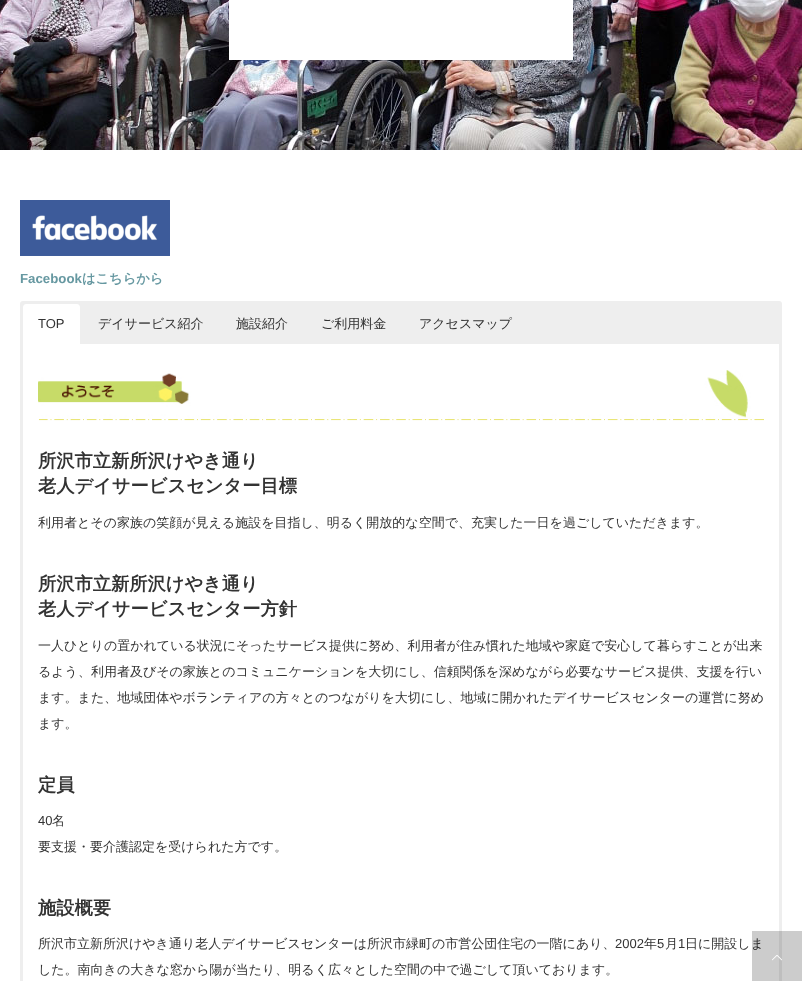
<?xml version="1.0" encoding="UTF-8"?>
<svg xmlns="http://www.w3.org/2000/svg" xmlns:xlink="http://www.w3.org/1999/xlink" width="802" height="981">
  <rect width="100%" height="100%" fill="#ffffff" />
  <image x="0" y="0" width="802" height="150" xlink:href="image1.png" />
  <rect x="229" width="344" height="60" fill="#ffffff" />
  <image x="20" y="200" width="150" height="56" xlink:href="image2.png" />
  <rect x="20" y="301" width="762" height="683" rx="3" fill="#eeeeee" />
  <path d="M 26 304 h 51 c 1.5 0 3 1.5 3 3 v 37 h -57 v -37 c 0 -1.5 1.5 -3 3 -3 z" fill="#ffffff" />
  <rect x="23" y="344" width="756" height="637" fill="#ffffff" />
  <image x="38" y="370" width="726" height="51" xlink:href="image3.png" />
  <text x="20" y="283" style="font-family: Liberation Sans; font-size: 13.25px; font-weight: bold; fill: #6698a1">Facebook</text>
  <text x="82" y="283" style="font-family: WenQuanYi Zen Hei; font-size: 13.25px; font-weight: bold; fill: #6698a1">はこちらから</text>
  <text x="38" y="328" style="font-family: Liberation Sans; font-size: 13px; fill: #333333">TOP</text>
  <text x="98" y="328" style="font-family: WenQuanYi Zen Hei; font-size: 13px; font-weight: 500; fill: #333333">デイサービス紹介</text>
  <text x="236" y="328" style="font-family: WenQuanYi Zen Hei; font-size: 13px; font-weight: 500; fill: #333333">施設紹介</text>
  <text x="321" y="328" style="font-family: WenQuanYi Zen Hei; font-size: 13px; font-weight: 500; fill: #333333">ご利用料金</text>
  <text x="419" y="328" style="font-family: WenQuanYi Zen Hei; font-size: 13px; font-weight: 500; fill: #333333">アクセスマップ</text>
  <text x="38" y="467" style="font-family: WenQuanYi Zen Hei; font-size: 18.25px; font-weight: bold; fill: #333333">所沢市立新所沢けやき通り</text>
  <text x="38" y="492" style="font-family: WenQuanYi Zen Hei; font-size: 18.25px; font-weight: bold; fill: #333333">老人デイサービスセンター目標</text>
  <text x="38" y="527" style="font-family: WenQuanYi Zen Hei; font-size: 13px; font-weight: 500; fill: #333333">利用者とその家族の笑顔が見える施設を目指し、明るく開放的な空間で、充実した一日を過ごしていただきます。</text>
  <text x="38" y="590" style="font-family: WenQuanYi Zen Hei; font-size: 18.25px; font-weight: bold; fill: #333333">所沢市立新所沢けやき通り</text>
  <text x="38" y="615" style="font-family: WenQuanYi Zen Hei; font-size: 18.25px; font-weight: bold; fill: #333333">老人デイサービスセンター方針</text>
  <text x="38" y="650" style="font-family: WenQuanYi Zen Hei; font-size: 13px; font-weight: 500; fill: #333333">一人ひとりの置かれている状況にそったサービス提供に努め、利用者が住み慣れた地域や家庭で安心して暮らすことが出来</text>
  <text x="38" y="676" style="font-family: WenQuanYi Zen Hei; font-size: 13px; font-weight: 500; fill: #333333">るよう、利用者及びその家族とのコミュニケーションを大切にし、信頼関係を深めながら必要なサービス提供、支援を行い</text>
  <text x="38" y="702" style="font-family: WenQuanYi Zen Hei; font-size: 13px; font-weight: 500; fill: #333333">ます。また、地域団体やボランティアの方々とのつながりを大切にし、地域に開かれたデイサービスセンターの運営に努め</text>
  <text x="38" y="728" style="font-family: WenQuanYi Zen Hei; font-size: 13px; font-weight: 500; fill: #333333">ます。</text>
  <text x="38" y="791" style="font-family: WenQuanYi Zen Hei; font-size: 18.25px; font-weight: bold; fill: #333333">定員</text>
  <text x="38" y="825" style="font-family: Liberation Sans; font-size: 13px; fill: #333333">40</text>
  <text x="52" y="825" style="font-family: WenQuanYi Zen Hei; font-size: 13px; font-weight: 500; fill: #333333">名</text>
  <text x="38" y="851" style="font-family: WenQuanYi Zen Hei; font-size: 13px; font-weight: 500; fill: #333333">要支援・要介護認定を受けられた方です。</text>
  <text x="38" y="914" style="font-family: WenQuanYi Zen Hei; font-size: 18.25px; font-weight: bold; fill: #333333">施設概要</text>
  <text x="38" y="948" style="font-family: WenQuanYi Zen Hei; font-size: 13px; font-weight: 500; fill: #333333">所沢市立新所沢けやき通り老人デイサービスセンターは所沢市緑町の市営公団住宅の一階にあり、</text>
  <text x="615" y="948" style="font-family: Liberation Sans; font-size: 13px; fill: #333333">2002</text>
  <text x="644" y="948" style="font-family: WenQuanYi Zen Hei; font-size: 13px; font-weight: 500; fill: #333333">年</text>
  <text x="657" y="948" style="font-family: Liberation Sans; font-size: 13px; fill: #333333">5</text>
  <text x="665" y="948" style="font-family: WenQuanYi Zen Hei; font-size: 13px; font-weight: 500; fill: #333333">月</text>
  <text x="678" y="948" style="font-family: Liberation Sans; font-size: 13px; fill: #333333">1</text>
  <text x="685" y="948" style="font-family: WenQuanYi Zen Hei; font-size: 13px; font-weight: 500; fill: #333333">日に開設しま</text>
  <text x="38" y="974" style="font-family: WenQuanYi Zen Hei; font-size: 13px; font-weight: 500; fill: #333333">した。南向きの大きな窓から陽が当たり、明るく広々とした空間の中で過ごして頂いております。</text>
  <rect x="752" y="931" width="50" height="50" fill="#000000" fill-opacity="0.2" />
  <image x="772" y="955" width="10" height="6" xlink:href="image4.png" />
</svg>
